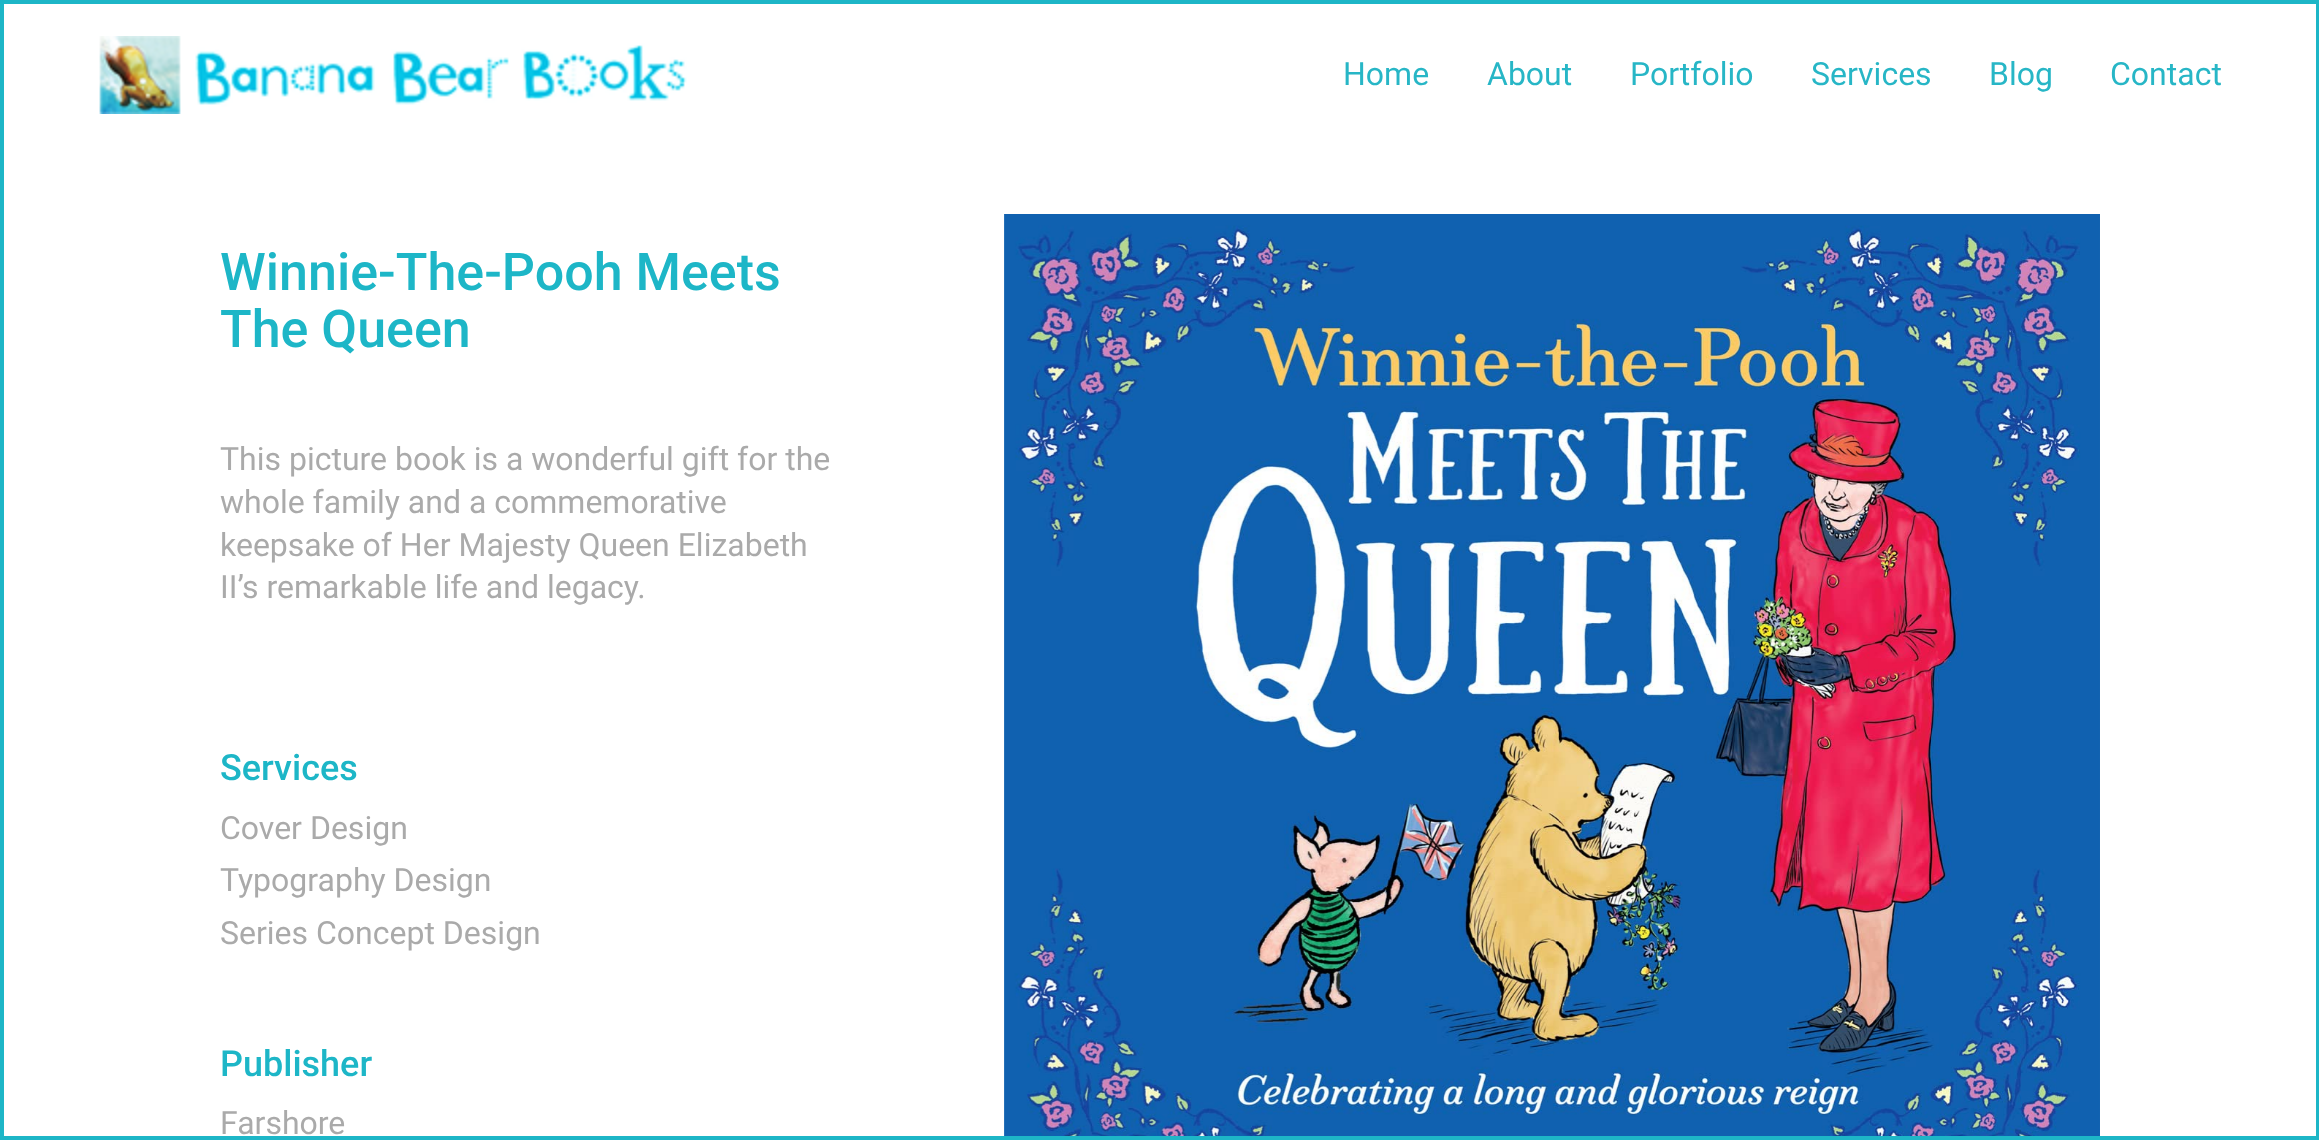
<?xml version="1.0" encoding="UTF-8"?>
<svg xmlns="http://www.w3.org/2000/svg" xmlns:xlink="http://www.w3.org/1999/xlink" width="2319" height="1140">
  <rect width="100%" height="100%" fill="#ffffff" />
  <rect width="2319" height="4" fill="#1db6c7" />
  <rect x="2316" width="3" height="1140" fill="#1db6c7" />
  <rect y="1136" width="2319" height="4" fill="#1db6c7" />
  <rect width="4" height="1140" fill="#1db6c7" />
  <image x="99" y="36" width="588" height="78" xlink:href="image1.png" />
  <image x="1004" y="214" width="1096" height="922" xlink:href="image2.png" />
  <text x="1343" y="85" style="font-family: Roboto; font-size: 32px; fill: #27b6c6">Home</text>
  <text x="1487" y="85" style="font-family: Roboto; font-size: 32px; fill: #27b6c6">About</text>
  <text x="1630" y="85" style="font-family: Roboto; font-size: 32px; fill: #27b6c6">Portfolio</text>
  <text x="1811" y="85" style="font-family: Roboto; font-size: 32px; fill: #27b6c6">Services</text>
  <text x="1989" y="85" style="font-family: Roboto; font-size: 32px; fill: #27b6c6">Blog</text>
  <text x="2110" y="85" style="font-family: Roboto; font-size: 32px; fill: #27b6c6">Contact</text>
  <text x="220" y="290" style="font-family: Roboto; font-size: 52px; font-weight: 500; fill: #1db6c7">Winnie-The-Pooh Meets</text>
  <text x="220" y="347" style="font-family: Roboto; font-size: 52px; font-weight: 500; fill: #1db6c7">The Queen</text>
  <text x="220" y="470" style="font-family: Roboto; font-size: 32px; fill: #aaaaaa">This picture book is a wonderful gift for the</text>
  <text x="220" y="513" style="font-family: Roboto; font-size: 32px; fill: #aaaaaa">whole family and a commemorative</text>
  <text x="220" y="556" style="font-family: Roboto; font-size: 32px; fill: #aaaaaa">keepsake of Her Majesty Queen Elizabeth</text>
  <text x="220" y="598" style="font-family: Roboto; font-size: 32px; fill: #aaaaaa">II’s remarkable life and legacy.</text>
  <text x="220" y="780" style="font-family: Roboto; font-size: 36px; font-weight: 500; fill: #1db6c7">Services</text>
  <text x="220" y="839" style="font-family: Roboto; font-size: 32px; fill: #aaaaaa">Cover Design</text>
  <text x="220" y="891" style="font-family: Roboto; font-size: 32px; fill: #aaaaaa">Typography Design</text>
  <text x="220" y="944" style="font-family: Roboto; font-size: 32px; fill: #aaaaaa">Series Concept Design</text>
  <text x="220" y="1076" style="font-family: Roboto; font-size: 36px; font-weight: 500; fill: #1db6c7">Publisher</text>
  <text x="220" y="1134" style="font-family: Roboto; font-size: 32px; fill: #aaaaaa">Farshore</text>
</svg>
